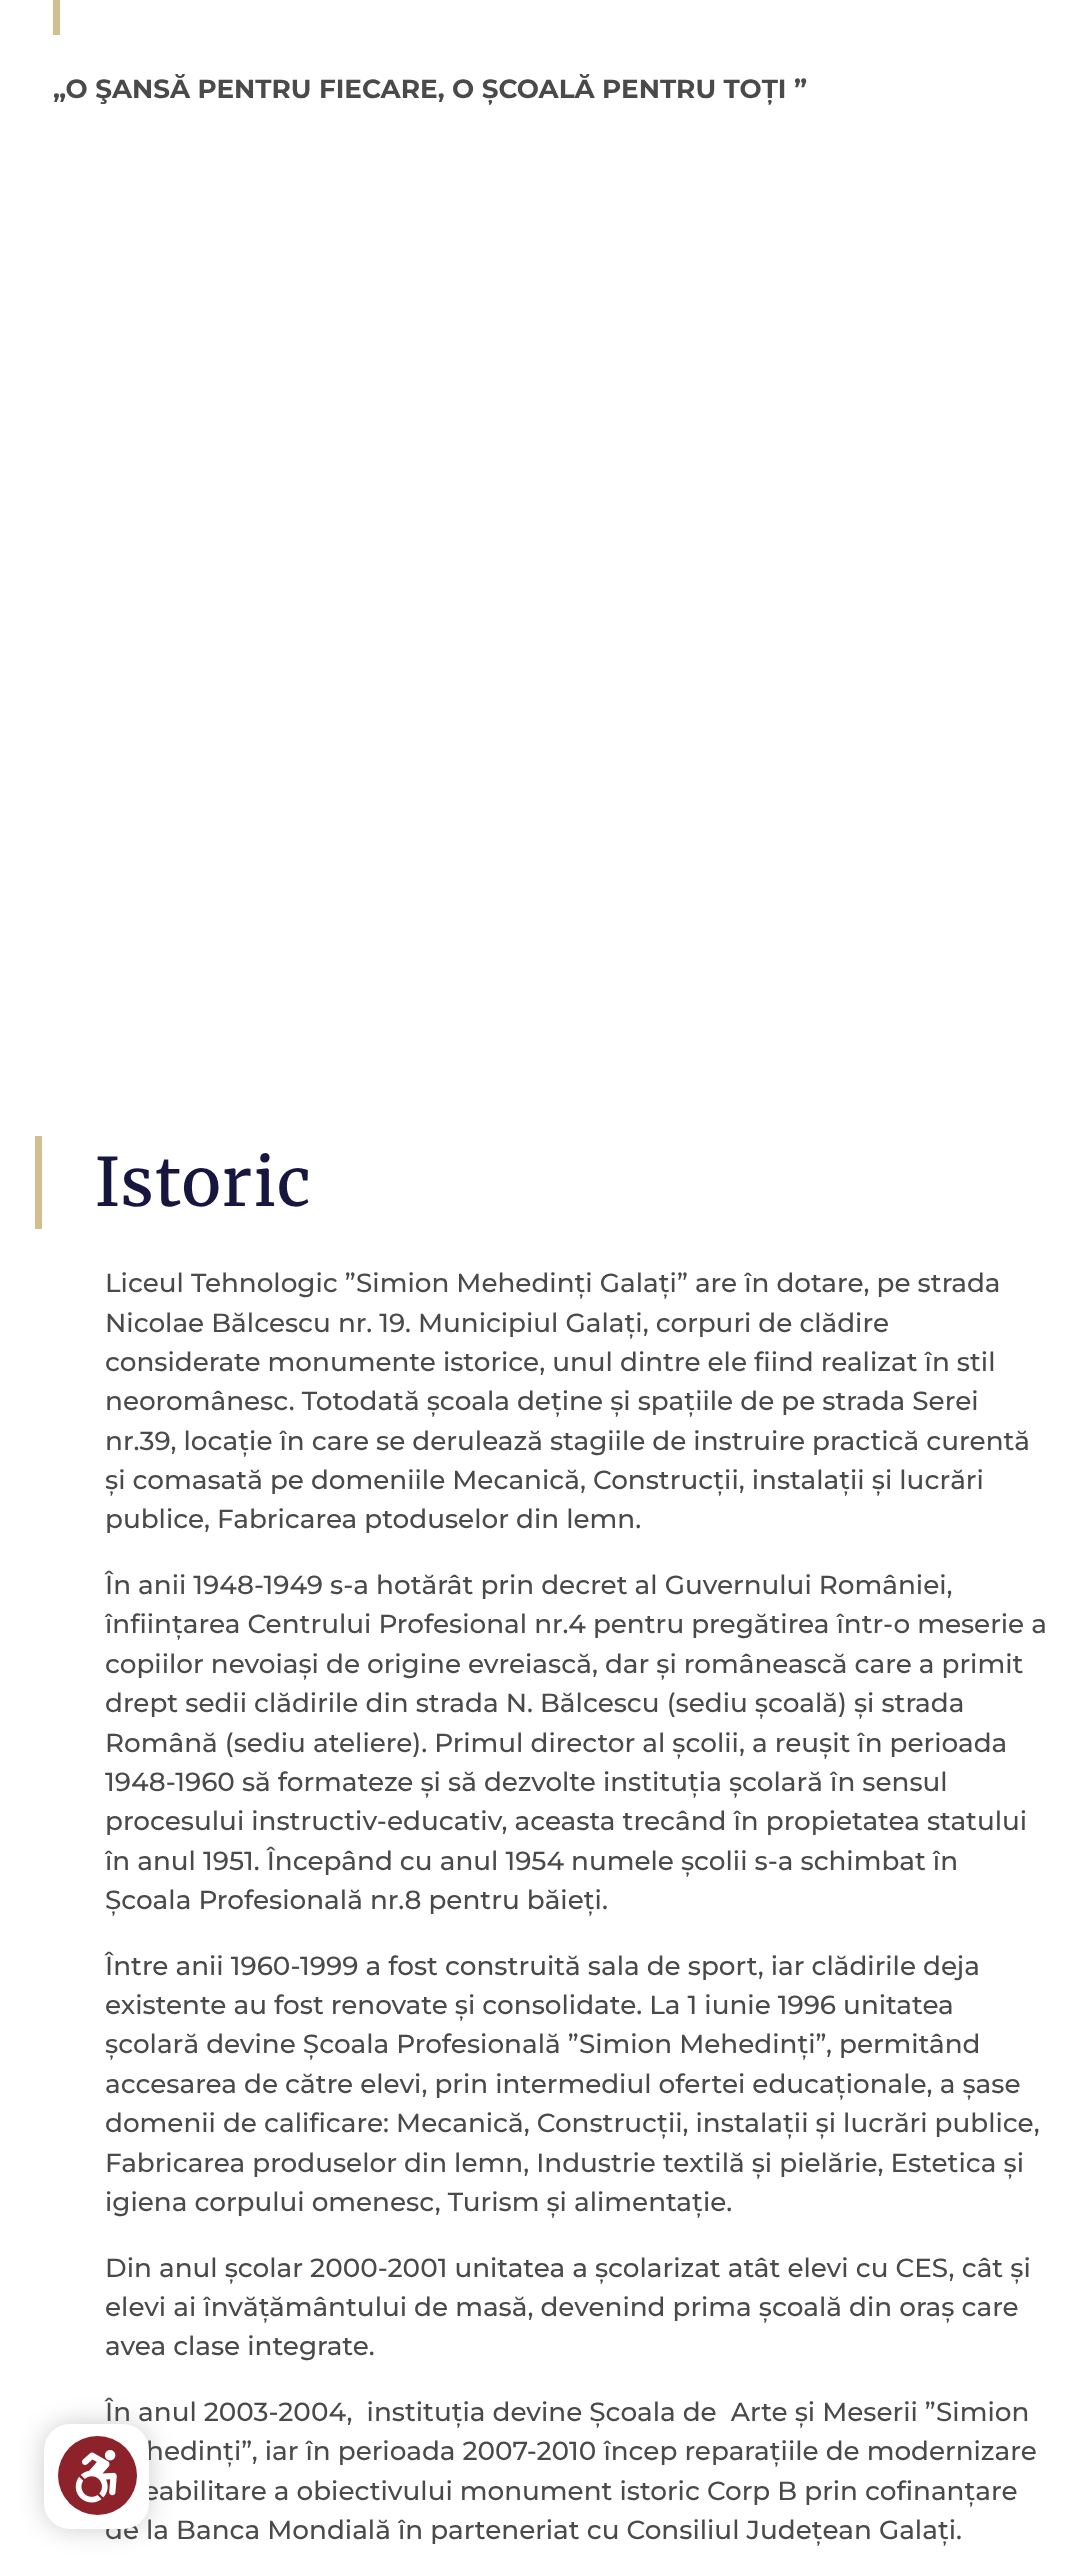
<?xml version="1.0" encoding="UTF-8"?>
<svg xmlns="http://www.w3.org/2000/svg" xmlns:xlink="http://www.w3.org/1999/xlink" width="1082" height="2571">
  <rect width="100%" height="100%" fill="#ffffff" />
  <rect x="53" width="7" height="35" fill="#d3be90" />
  <rect x="35" y="1136" width="7" height="93" fill="#d3be90" />
  <rect x="44" y="2424" width="105" height="105" rx="26" fill="#000000" fill-opacity="0.2" filter="blur(13px)" />
  <text x="53" y="98" style="font-family: Montserrat; font-size: 26.25px; font-weight: bold; fill: #4a4a4a">„O ŞANSĂ PENTRU FIECARE, O ȘCOALĂ PENTRU TOȚI ”</text>
  <text x="95" y="1206" style="font-family: Merriweather; font-size: 66.5px; font-weight: 500; letter-spacing: 1.75px; fill: #16163f">Istoric</text>
  <text x="105" y="1292" style="font-family: Montserrat; font-size: 26.25px; font-weight: 500; fill: #4a4a4a">Liceul Tehnologic ”Simion Mehedinți Galați” are în dotare, pe strada</text>
  <text x="105" y="1332" style="font-family: Montserrat; font-size: 26.25px; font-weight: 500; fill: #4a4a4a">Nicolae Bălcescu nr. 19. Municipiul Galați, corpuri de clădire</text>
  <text x="105" y="1371" style="font-family: Montserrat; font-size: 26.25px; font-weight: 500; fill: #4a4a4a">considerate monumente istorice, unul dintre ele fiind realizat în stil</text>
  <text x="105" y="1410" style="font-family: Montserrat; font-size: 26.25px; font-weight: 500; fill: #4a4a4a">neoromânesc. Totodată școala deține și spațiile de pe strada Serei</text>
  <text x="105" y="1450" style="font-family: Montserrat; font-size: 26.25px; font-weight: 500; fill: #4a4a4a">nr.39, locație în care se derulează stagiile de instruire practică curentă</text>
  <text x="105" y="1489" style="font-family: Montserrat; font-size: 26.25px; font-weight: 500; fill: #4a4a4a">și comasată pe domeniile Mecanică, Construcții, instalații și lucrări</text>
  <text x="105" y="1528" style="font-family: Montserrat; font-size: 26.25px; font-weight: 500; fill: #4a4a4a">publice, Fabricarea ptoduselor din lemn.</text>
  <text x="105" y="1594" style="font-family: Montserrat; font-size: 26.25px; font-weight: 500; fill: #4a4a4a">În anii 1948-1949 s-a hotărât prin decret al Guvernului României,</text>
  <text x="105" y="1633" style="font-family: Montserrat; font-size: 26.25px; font-weight: 500; fill: #4a4a4a">înființarea Centrului Profesional nr.4 pentru pregătirea într-o meserie a</text>
  <text x="105" y="1673" style="font-family: Montserrat; font-size: 26.25px; font-weight: 500; fill: #4a4a4a">copiilor nevoiași de origine evreiască, dar și românească care a primit</text>
  <text x="105" y="1712" style="font-family: Montserrat; font-size: 26.25px; font-weight: 500; fill: #4a4a4a">drept sedii clădirile din strada N. Bălcescu (sediu școală) și strada</text>
  <text x="105" y="1752" style="font-family: Montserrat; font-size: 26.25px; font-weight: 500; fill: #4a4a4a">Română (sediu ateliere). Primul director al școlii, a reușit în perioada</text>
  <text x="105" y="1791" style="font-family: Montserrat; font-size: 26.25px; font-weight: 500; fill: #4a4a4a">1948-1960 să formateze și să dezvolte instituția școlară în sensul</text>
  <text x="105" y="1830" style="font-family: Montserrat; font-size: 26.25px; font-weight: 500; fill: #4a4a4a">procesului instructiv-educativ, aceasta trecând în propietatea statului</text>
  <text x="105" y="1870" style="font-family: Montserrat; font-size: 26.25px; font-weight: 500; fill: #4a4a4a">în anul 1951. Începând cu anul 1954 numele școlii s-a schimbat în</text>
  <text x="105" y="1909" style="font-family: Montserrat; font-size: 26.25px; font-weight: 500; fill: #4a4a4a">Școala Profesională nr.8 pentru băieți.</text>
  <text x="105" y="1975" style="font-family: Montserrat; font-size: 26.25px; font-weight: 500; fill: #4a4a4a">Între anii 1960-1999 a fost construită sala de sport, iar clădirile deja</text>
  <text x="105" y="2014" style="font-family: Montserrat; font-size: 26.25px; font-weight: 500; fill: #4a4a4a">existente au fost renovate și consolidate. La 1 iunie 1996 unitatea</text>
  <text x="105" y="2053" style="font-family: Montserrat; font-size: 26.25px; font-weight: 500; fill: #4a4a4a">școlară devine Școala Profesională ”Simion Mehedinți”, permitând</text>
  <text x="105" y="2093" style="font-family: Montserrat; font-size: 26.25px; font-weight: 500; fill: #4a4a4a">accesarea de către elevi, prin intermediul ofertei educaționale, a șase</text>
  <text x="105" y="2132" style="font-family: Montserrat; font-size: 26.25px; font-weight: 500; fill: #4a4a4a">domenii de calificare: Mecanică, Construcții, instalații și lucrări publice,</text>
  <text x="105" y="2172" style="font-family: Montserrat; font-size: 26.25px; font-weight: 500; fill: #4a4a4a">Fabricarea produselor din lemn, Industrie textilă și pielărie, Estetica și</text>
  <text x="105" y="2211" style="font-family: Montserrat; font-size: 26.25px; font-weight: 500; fill: #4a4a4a">igiena corpului omenesc, Turism și alimentație.</text>
  <text x="105" y="2277" style="font-family: Montserrat; font-size: 26.25px; font-weight: 500; fill: #4a4a4a">Din anul școlar 2000-2001 unitatea a școlarizat atât elevi cu CES, cât și</text>
  <text x="105" y="2316" style="font-family: Montserrat; font-size: 26.25px; font-weight: 500; fill: #4a4a4a">elevi ai învățământului de masă, devenind prima școală din oraș care</text>
  <text x="105" y="2355" style="font-family: Montserrat; font-size: 26.25px; font-weight: 500; fill: #4a4a4a">avea clase integrate.</text>
  <text x="105" y="2421" style="font-family: Montserrat; font-size: 26.25px; font-weight: 500; fill: #4a4a4a" xml:space="preserve">În anul 2003-2004,  instituția devine Școala de  Arte și Meserii ”Simion</text>
  <text x="146" y="2460" style="font-family: Montserrat; font-size: 26.25px; font-weight: 500; fill: #4a4a4a">hedinți”, iar în perioada 2007-2010 încep reparațiile de modernizare</text>
  <text x="143" y="2500" style="font-family: Montserrat; font-size: 26.25px; font-weight: 500; fill: #4a4a4a">eabilitare a obiectivului monument istoric Corp B prin cofinanțare</text>
  <text x="105" y="2539" style="font-family: Montserrat; font-size: 26.25px; font-weight: 500; fill: #4a4a4a">de la Banca Mondială în parteneriat cu Consiliul Județean Galați.</text>
  <rect x="44" y="2424" width="105" height="105" rx="26" fill="#ffffff" />
  <circle cx="97.5" cy="2475.5" r="39.5" fill="#8d222a" />
  <image x="75" y="2450" width="42" height="53" xlink:href="image1.png" />
</svg>
